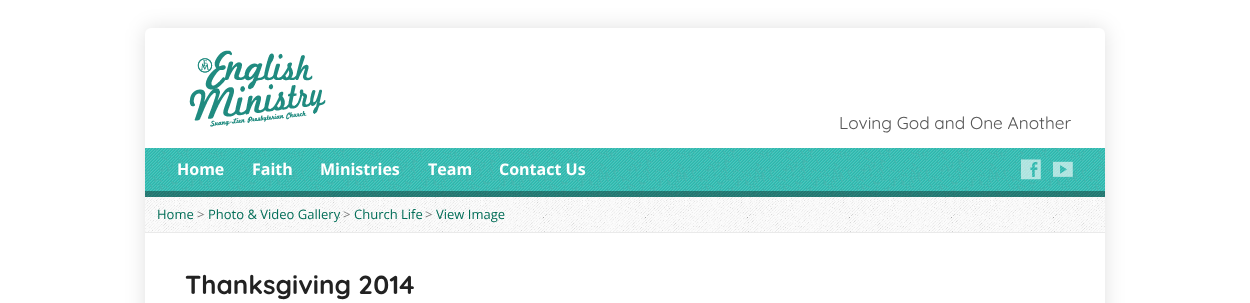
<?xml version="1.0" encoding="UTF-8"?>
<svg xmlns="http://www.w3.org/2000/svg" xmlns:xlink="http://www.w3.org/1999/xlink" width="1250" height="303">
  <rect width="100%" height="100%" fill="#ffffff" />
  <rect x="145" y="28" width="960" height="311" rx="6" fill="#000000" fill-opacity="0.12" filter="blur(10px)" />
  <rect x="145" y="28" width="960" height="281" rx="6" fill="#ffffff" />
  <image x="189" y="50" width="137" height="77" xlink:href="image1.png" />
  <rect x="145" y="148" width="960" height="49" fill="#2ac9be" />
  <image x="145" y="148" width="960" height="49" xlink:href="image2.png" />
  <image x="1021" y="159" width="20" height="21" xlink:href="image3.png" />
  <image x="1053" y="161" width="20" height="16" xlink:href="image4.png" />
  <rect x="145" y="191" width="960" height="6" fill="#000000" fill-opacity="0.35" />
  <image x="145" y="197" width="960" height="35" xlink:href="image5.png" />
  <rect x="145" y="232" width="960" height="1" fill="#eaeaea" />
  <text x="839" y="129" style="font-family: Quicksand; font-size: 17.25px; fill: #555555">Loving God and One Another</text>
  <text x="177" y="175" style="font-family: Open Sans; font-size: 16px; font-weight: bold; fill: #ffffff">Home</text>
  <text x="252" y="175" style="font-family: Open Sans; font-size: 16px; font-weight: bold; fill: #ffffff">Faith</text>
  <text x="320" y="175" style="font-family: Open Sans; font-size: 16px; font-weight: bold; fill: #ffffff">Ministries</text>
  <text x="428" y="175" style="font-family: Open Sans; font-size: 16px; font-weight: bold; fill: #ffffff">Team</text>
  <text x="499" y="175" style="font-family: Open Sans; font-size: 16px; font-weight: bold; fill: #ffffff">Contact Us</text>
  <text x="157" y="219" style="font-family: Open Sans; font-size: 13px; fill: #006d57">Home</text>
  <text x="197" y="219" style="font-family: Open Sans; font-size: 13px; fill: #777777">&gt;</text>
  <text x="208" y="219" style="font-family: Open Sans; font-size: 13px; fill: #006d57">Photo &amp; Video Gallery</text>
  <text x="343" y="219" style="font-family: Open Sans; font-size: 13px; fill: #777777">&gt;</text>
  <text x="354" y="219" style="font-family: Open Sans; font-size: 13px; fill: #006d57">Church Life</text>
  <text x="425" y="219" style="font-family: Open Sans; font-size: 13px; fill: #777777">&gt;</text>
  <text x="436" y="219" style="font-family: Open Sans; font-size: 13px; fill: #006d57">View Image</text>
  <text x="185" y="294" style="font-family: Quicksand; font-size: 26px; font-weight: bold; fill: #222222">Thanksgiving 2014</text>
</svg>
